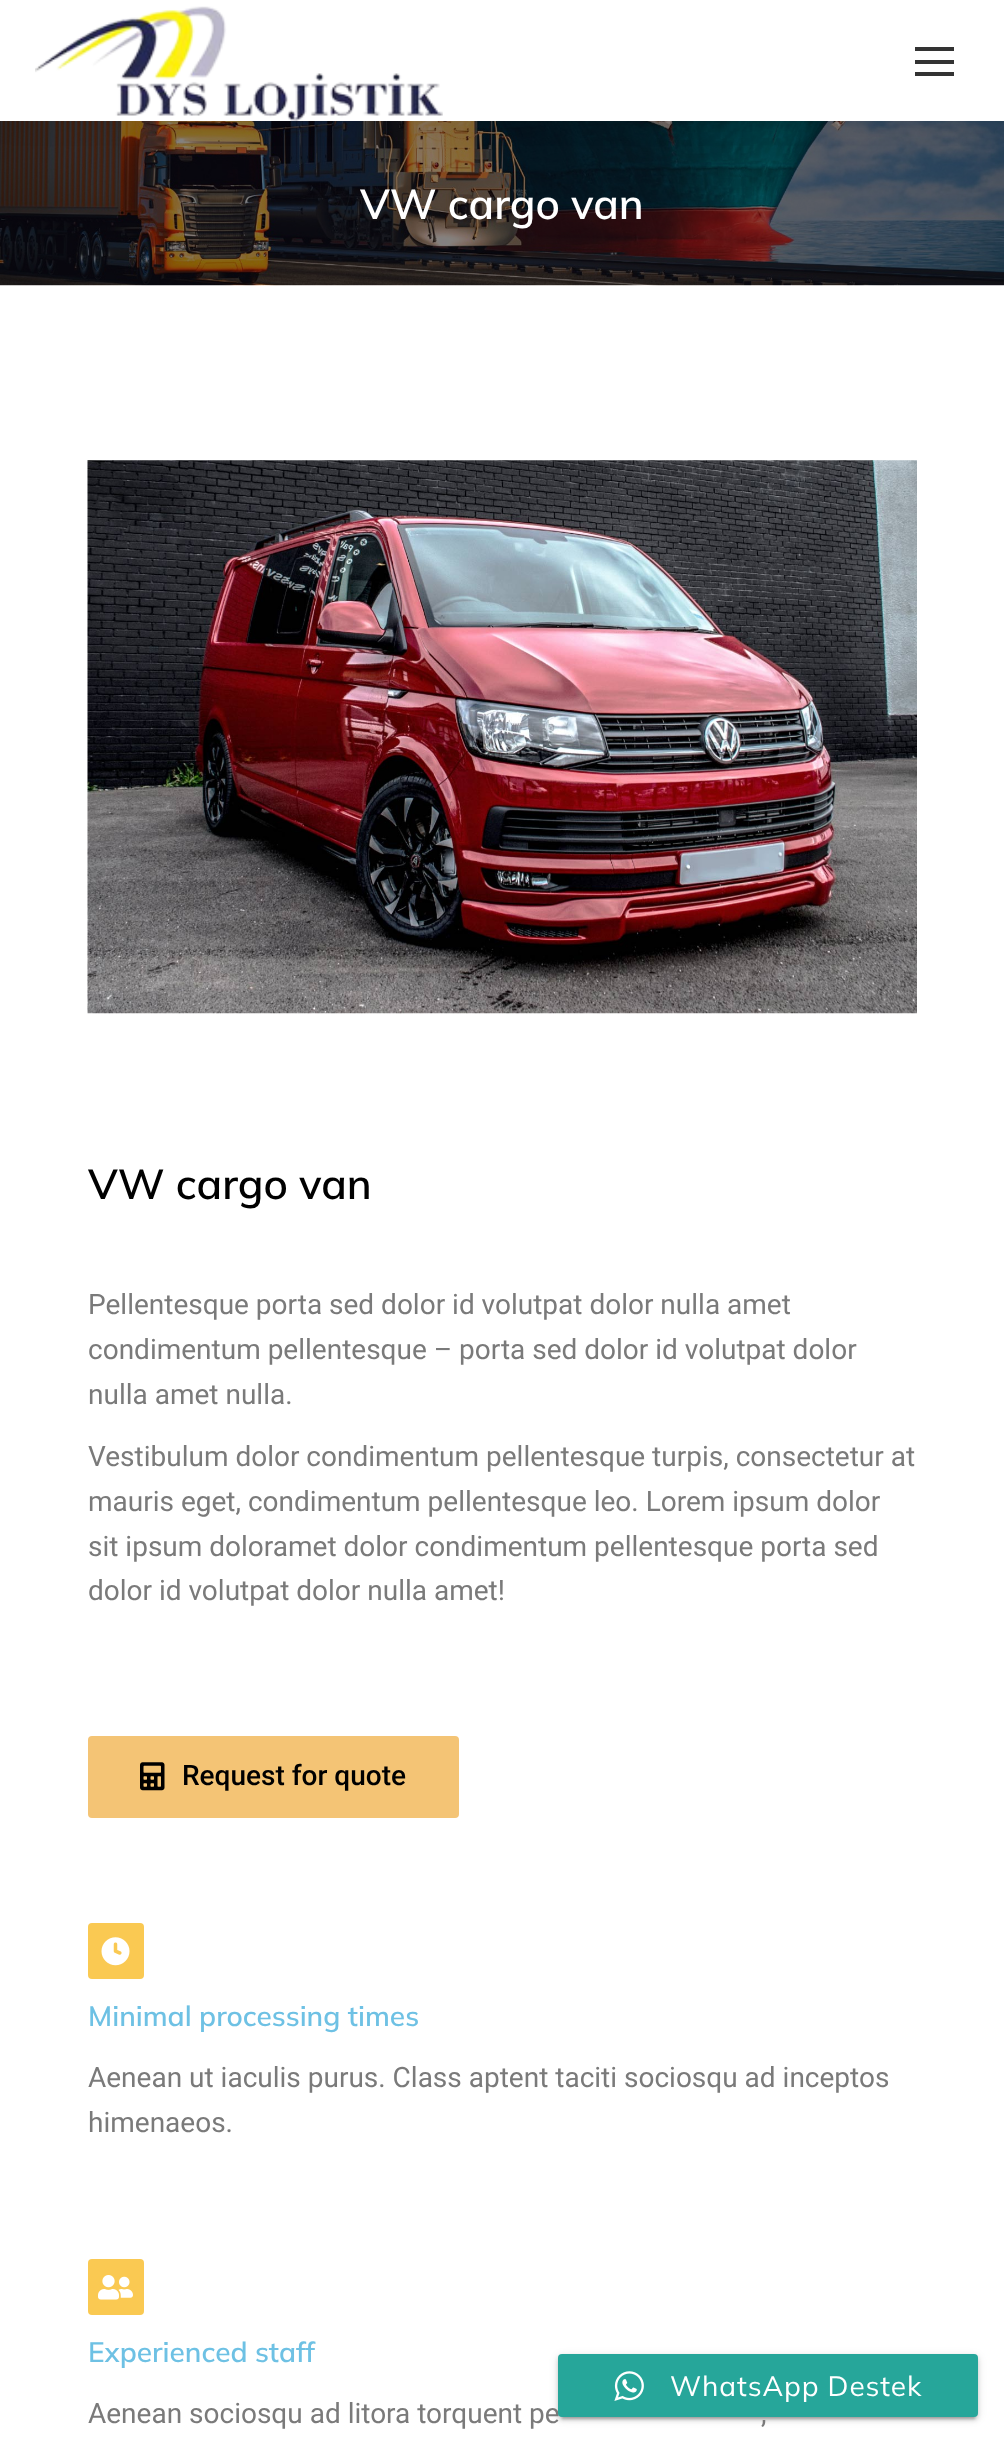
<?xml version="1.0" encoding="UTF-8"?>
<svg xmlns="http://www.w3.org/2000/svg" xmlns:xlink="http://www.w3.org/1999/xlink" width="1004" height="2443">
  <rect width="100%" height="100%" fill="#ffffff" />
  <image x="0" y="121" width="1004" height="165" xlink:href="image2.png" />
  <rect x="-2" y="-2" width="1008" height="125" fill="#000000" fill-opacity="0.07" filter="blur(13px)" />
  <rect width="1004" height="121" fill="#ffffff" />
  <image x="35" y="6" width="408" height="115" xlink:href="image1.png" />
  <rect x="915" y="47" width="39" height="4" fill="#333333" />
  <rect x="915" y="60" width="39" height="4" fill="#333333" />
  <rect x="915" y="72" width="39" height="4" fill="#333333" />
  <image x="87" y="460" width="830" height="554" xlink:href="image3.png" />
  <rect x="88" y="1736" width="371" height="82" rx="4" fill="#f4c475" />
  <image x="140" y="1762" width="25" height="29" xlink:href="image4.png" />
  <rect x="88" y="1923" width="56" height="56" rx="4" fill="#fac952" />
  <image x="101" y="1937" width="29" height="29" xlink:href="image5.png" />
  <rect x="88" y="2259" width="56" height="56" rx="4" fill="#fac952" />
  <image x="98" y="2275" width="35" height="25" xlink:href="image6.png" />
  <rect x="562" y="2363" width="413" height="56" fill="#000000" fill-opacity="0.2" filter="blur(1px)" />
  <rect x="558" y="2356" width="420" height="63" rx="4" fill="#000000" fill-opacity="0.12" filter="blur(4.5px)" />
  <rect x="558" y="2357" width="420" height="63" rx="4" fill="#000000" fill-opacity="0.14" filter="blur(2px)" />
  <text x="360" y="219" style="font-family: Mulish; font-size: 42px; font-weight: 200; fill: #ffffff">VW cargo van</text>
  <text x="88" y="1199" style="font-family: Mulish; font-size: 42px; font-weight: 200; fill: #000000">VW cargo van</text>
  <text x="88" y="1314" style="font-family: Roboto; font-size: 28px; fill: #7a7a7a">Pellentesque porta sed dolor id volutpat dolor nulla amet</text>
  <text x="88" y="1359" style="font-family: Roboto; font-size: 28px; fill: #7a7a7a">condimentum pellentesque – porta sed dolor id volutpat dolor</text>
  <text x="88" y="1404" style="font-family: Roboto; font-size: 28px; fill: #7a7a7a">nulla amet nulla.</text>
  <text x="88" y="1466" style="font-family: Roboto; font-size: 28px; fill: #7a7a7a">Vestibulum dolor condimentum pellentesque turpis, consectetur at</text>
  <text x="88" y="1511" style="font-family: Roboto; font-size: 28px; fill: #7a7a7a">mauris eget, condimentum pellentesque leo. Lorem ipsum dolor</text>
  <text x="88" y="1556" style="font-family: Roboto; font-size: 28px; fill: #7a7a7a">sit ipsum doloramet dolor condimentum pellentesque porta sed</text>
  <text x="88" y="1600" style="font-family: Roboto; font-size: 28px; fill: #7a7a7a">dolor id volutpat dolor nulla amet!</text>
  <text x="182" y="1785" style="font-family: Roboto; font-size: 28px; font-weight: 500; fill: #000000">Request for quote</text>
  <text x="88" y="2026" style="font-family: Mulish; font-size: 28px; font-weight: 200; fill: #6ec1e4">Minimal processing times</text>
  <text x="88" y="2087" style="font-family: Roboto; font-size: 28px; fill: #7a7a7a">Aenean ut iaculis purus. Class aptent taciti sociosqu ad inceptos</text>
  <text x="88" y="2132" style="font-family: Roboto; font-size: 28px; fill: #7a7a7a">himenaeos.</text>
  <text x="88" y="2362" style="font-family: Mulish; font-size: 28px; font-weight: 200; fill: #6ec1e4">Experienced staff</text>
  <text x="88" y="2423" style="font-family: Roboto; font-size: 28px; fill: #7a7a7a">Aenean sociosqu ad litora torquent pe</text>
  <text x="761" y="2423" style="font-family: Roboto; font-size: 28px; fill: #7a7a7a">,</text>
  <rect x="558" y="2354" width="420" height="63" rx="4" fill="#26a69a" />
  <image x="614" y="2371" width="30" height="30" xlink:href="image7.png" />
  <text x="670" y="2396" style="font-family: 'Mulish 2'; font-size: 28px; font-weight: 200; letter-spacing: 0.9px; fill: #ffffff">WhatsApp Destek</text>
</svg>
